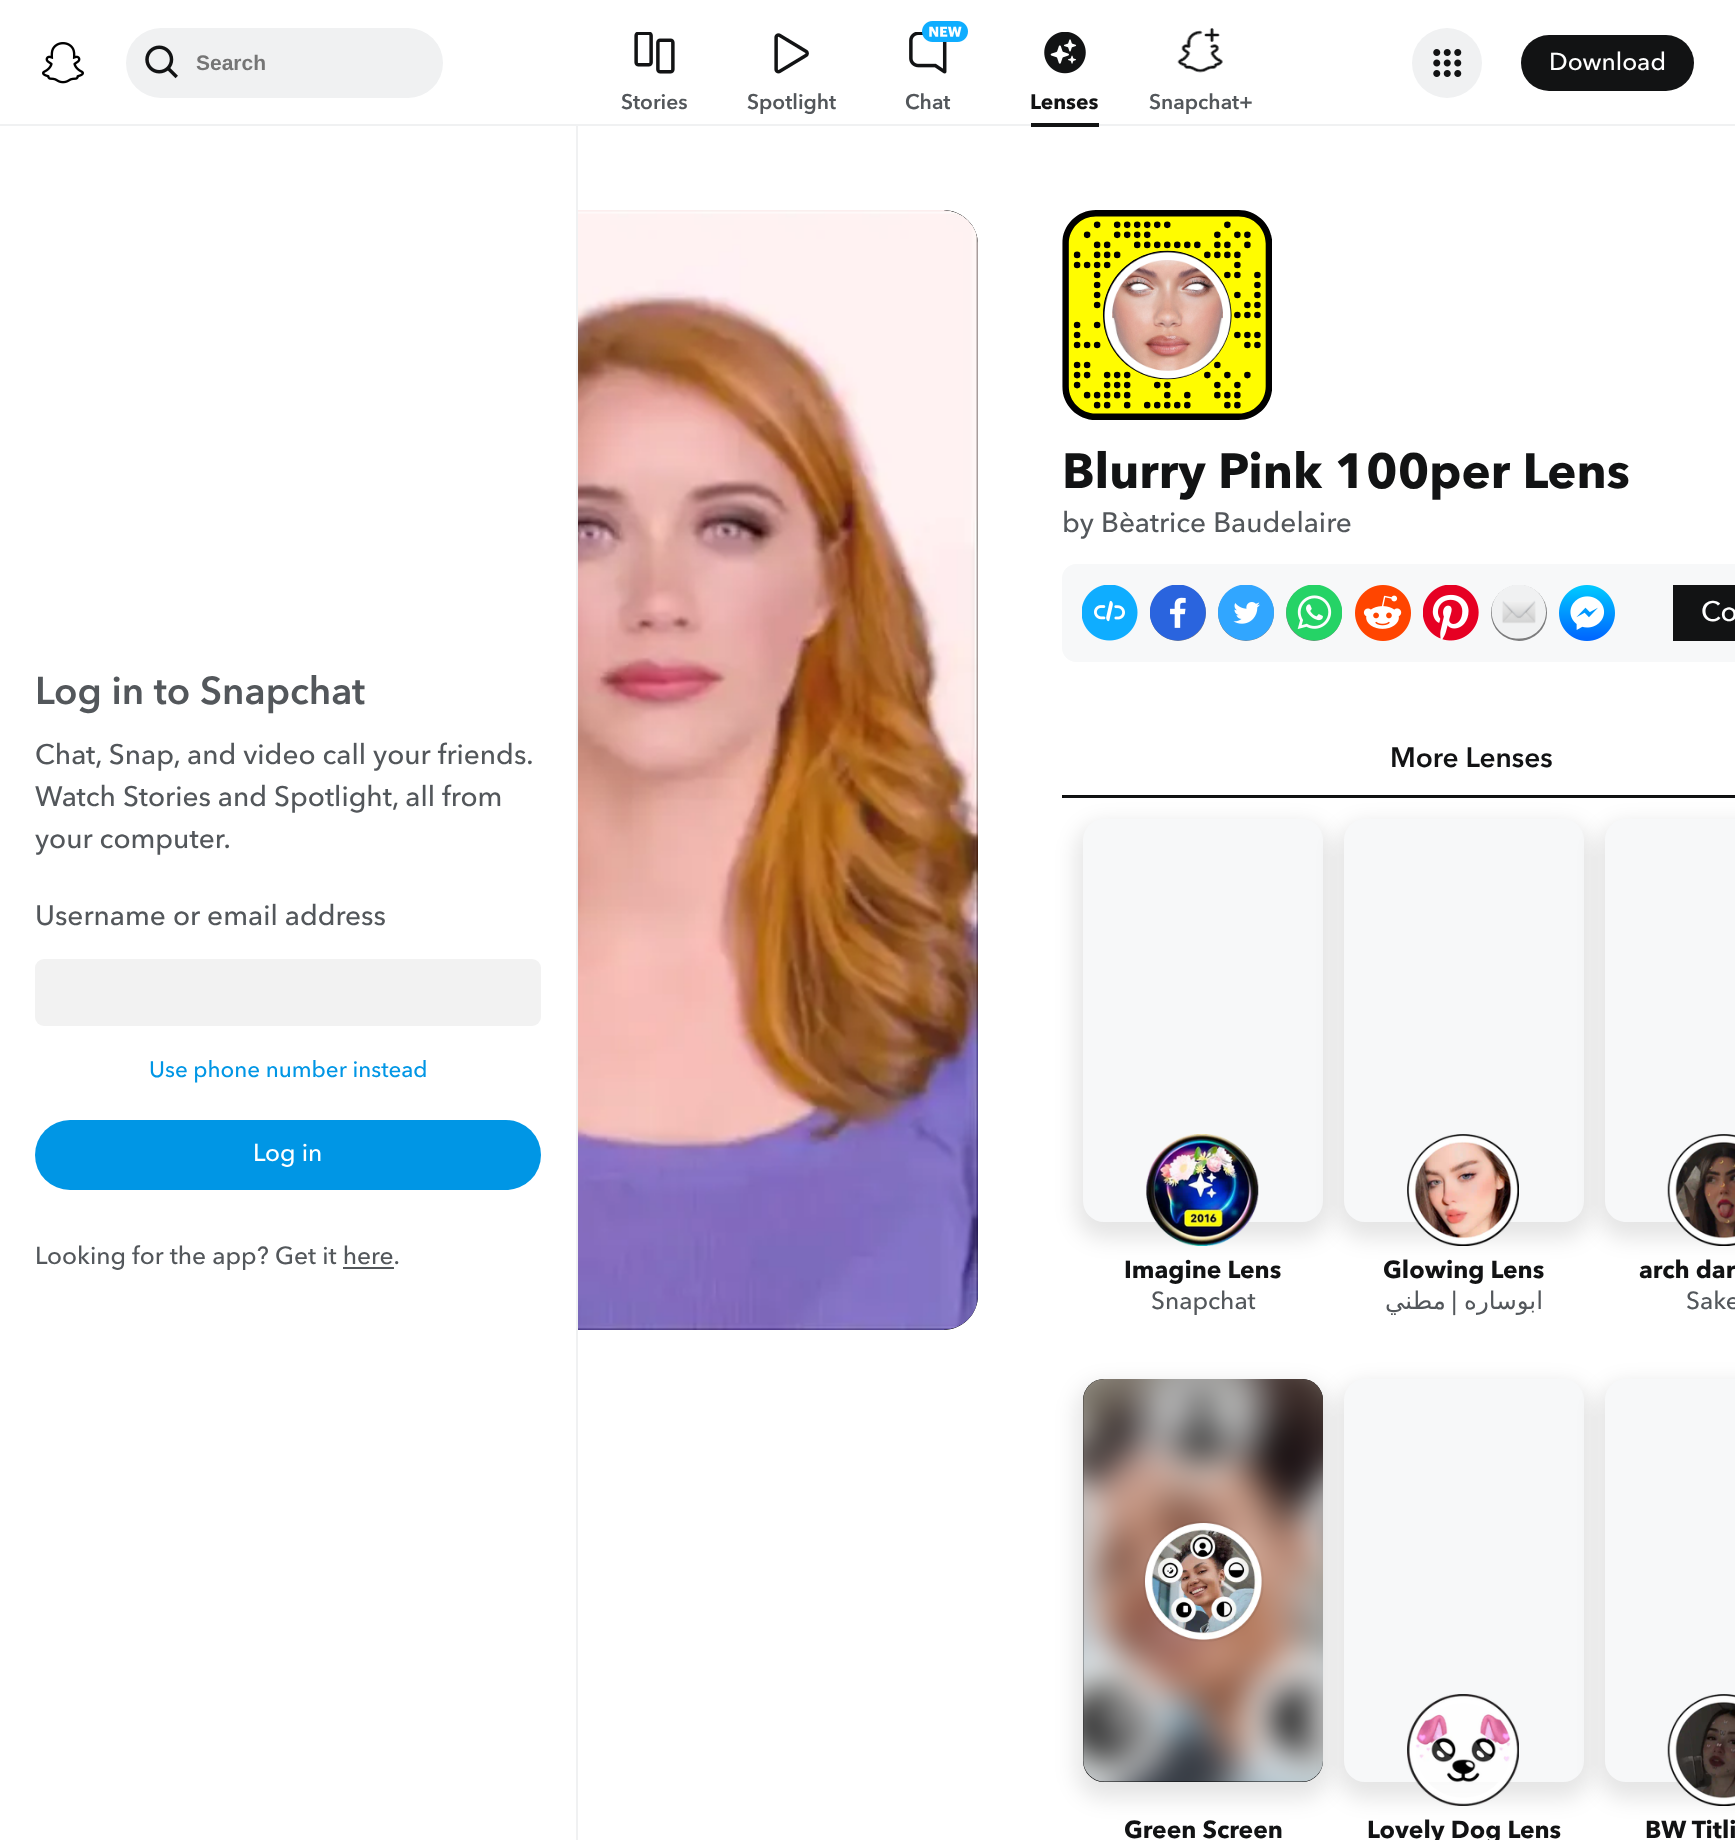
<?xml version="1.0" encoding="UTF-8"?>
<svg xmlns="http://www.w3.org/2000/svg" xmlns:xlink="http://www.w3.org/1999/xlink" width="1735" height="1840">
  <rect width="100%" height="100%" fill="#ffffff" />
  <rect y="124" width="1735" height="2" fill="#f0f1f2" />
  <image x="42" y="42" width="42" height="42" xlink:href="image1.png" />
  <rect x="126" y="28" width="317" height="70" rx="35" fill="#f0f1f2" />
  <image x="145" y="45" width="33" height="34" xlink:href="image2.png" />
  <circle cx="1447" cy="63" r="35" fill="#f0f1f2" />
  <image x="1433" y="49" width="29" height="28" xlink:href="image3.png" />
  <rect x="1521" y="35" width="173" height="56" rx="28" fill="#121314" />
  <image x="634" y="32" width="41" height="42" xlink:href="image4.png" />
  <image x="774" y="33" width="35" height="41" xlink:href="image5.png" />
  <image x="909" y="32" width="38" height="42" xlink:href="image7.png" />
  <image x="922" y="21" width="46" height="21" xlink:href="image6.png" />
  <image x="1044" y="32" width="42" height="42" xlink:href="image8.png" />
  <rect x="1031" y="123" width="68" height="4" fill="#121314" />
  <image x="1177" y="28" width="46" height="45" xlink:href="image9.png" />
  <path d="M 578 210 h 365 c 19.5 0 35 15.5 35 35 v 1050 c 0 19.5 -15.5 35 -35 35 h -365 z" fill="#000000" />
  <image x="578" y="210" width="400" height="1120" xlink:href="image10.png" />
  <image x="1062" y="210" width="210" height="210" xlink:href="image11.png" />
  <path d="M 1076 564 h 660 v 98 h -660 c -7.5 0 -14 -6.5 -14 -14 v -70 c 0 -7.5 6.5 -14 14 -14 z" fill="#f7f8f9" />
  <image x="1082" y="585" width="56" height="56" xlink:href="image12.png" />
  <circle cx="1178" cy="613" r="28" fill="#7c7c7d" />
  <image x="1150" y="585" width="56" height="56" xlink:href="image13.png" />
  <circle cx="1246" cy="613" r="28" fill="#7c7c7d" />
  <image x="1218" y="585" width="56" height="56" xlink:href="image14.png" />
  <circle cx="1314" cy="613" r="28" fill="#7c7c7d" />
  <image x="1286" y="585" width="56" height="56" xlink:href="image15.png" />
  <image x="1355" y="585" width="56" height="56" xlink:href="image16.png" />
  <image x="1423" y="585" width="56" height="56" xlink:href="image17.png" />
  <circle cx="1519" cy="613" r="28" fill="#7c7c7d" />
  <image x="1491" y="585" width="55" height="54" xlink:href="image18.png" />
  <image x="1559" y="585" width="56" height="56" xlink:href="image19.png" />
  <rect x="1673" y="585" width="62" height="56" fill="#121314" />
  <rect x="1062" y="795" width="673" height="1" fill="#0c0d0d" />
  <rect x="1062" y="796" width="673" height="2" fill="#121314" />
  <rect x="1062" y="795" width="2" height="3" fill="#0c0d0d" />
  <rect x="1076" y="823" width="254" height="416" rx="28" fill="#000000" fill-opacity="0.1" filter="blur(10.5px)" />
  <rect x="1083" y="819" width="240" height="403" rx="21" fill="#f7f8f9" />
  <image x="1146" y="1134" width="113" height="112" xlink:href="image20.png" />
  <rect x="1337" y="823" width="254" height="416" rx="28" fill="#000000" fill-opacity="0.1" filter="blur(10.5px)" />
  <rect x="1344" y="819" width="240" height="403" rx="21" fill="#f7f8f9" />
  <image x="1407" y="1134" width="112" height="112" xlink:href="image21.png" />
  <rect x="1598" y="823" width="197" height="416" rx="28" fill="#000000" fill-opacity="0.1" filter="blur(10.5px)" />
  <path d="M 1626 819 h 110 v 403 h -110 c -11.5 0 -21 -9.5 -21 -21 v -361 c 0 -11.5 9.5 -21 21 -21 z" fill="#f7f8f9" />
  <image x="1667" y="1134" width="68" height="112" xlink:href="image22.png" />
  <rect x="1076" y="1383" width="254" height="416" rx="28" fill="#000000" fill-opacity="0.1" filter="blur(10.5px)" />
  <rect x="1083" y="1379" width="240" height="403" rx="21" fill="#000000" />
  <image x="1083" y="1379" width="240" height="403" xlink:href="image23.png" />
  <image x="1143" y="1521" width="121" height="121" xlink:href="image24.png" />
  <rect x="1337" y="1383" width="254" height="416" rx="28" fill="#000000" fill-opacity="0.1" filter="blur(10.5px)" />
  <rect x="1344" y="1379" width="240" height="403" rx="21" fill="#f7f8f9" />
  <image x="1407" y="1694" width="112" height="112" xlink:href="image25.png" />
  <rect x="1598" y="1383" width="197" height="416" rx="28" fill="#000000" fill-opacity="0.1" filter="blur(10.5px)" />
  <path d="M 1626 1379 h 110 v 403 h -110 c -11.5 0 -21 -9.5 -21 -21 v -361 c 0 -11.5 9.5 -21 21 -21 z" fill="#f7f8f9" />
  <image x="1667" y="1694" width="68" height="112" xlink:href="image26.png" />
  <rect x="576" y="126" width="2" height="1714" fill="#f0f1f2" />
  <rect x="35" y="959" width="506" height="67" rx="9" fill="#f2f2f2" />
  <rect x="35" y="1120" width="506" height="70" rx="35" fill="#0096e5" />
  <rect x="343" y="1267" width="51" height="2" fill="#53575b" />
  <text x="196" y="70" style="font-family: Liberation Sans; font-size: 21px; font-weight: bold; fill: #757575">Search</text>
  <text x="1549" y="70" style="font-family: Avenir Next; font-size: 24.5px; font-weight: 500; fill: #ffffff">Download</text>
  <text x="621" y="109" style="font-family: Avenir Next; font-size: 21px; font-weight: 600; fill: #53575b">Stories</text>
  <text x="747" y="109" style="font-family: Avenir Next; font-size: 21px; font-weight: 600; fill: #53575b">Spotlight</text>
  <text x="905" y="109" style="font-family: Avenir Next; font-size: 21px; font-weight: 600; fill: #53575b">Chat</text>
  <text x="1030" y="109" style="font-family: Avenir Next; font-size: 21px; font-weight: bold; fill: #121314">Lenses</text>
  <text x="1149" y="109" style="font-family: Avenir Next; font-size: 21px; font-weight: 600; fill: #53575b">Snapchat+</text>
  <text x="1062" y="488" style="font-family: Avenir Next; font-size: 49px; font-weight: bold; fill: #121314">Blurry Pink 100per Lens</text>
  <text x="1062" y="532" style="font-family: Avenir Next; font-size: 28px; font-weight: 500; fill: #53575b">by Bèatrice Baudelaire</text>
  <text x="1701" y="621" style="font-family: Avenir Next; font-size: 28px; font-weight: 500; fill: #ffffff">Co</text>
  <text x="1390" y="767" style="font-family: Avenir Next; font-size: 28px; font-weight: 600; fill: #121314">More Lenses</text>
  <text x="1124" y="1278" style="font-family: Avenir Next; font-size: 24.5px; font-weight: bold; fill: #121314">Imagine Lens</text>
  <text x="1151" y="1309" style="font-family: Avenir Next; font-size: 24.5px; font-weight: 500; fill: #53575b">Snapchat</text>
  <text x="1383" y="1278" style="font-family: Avenir Next; font-size: 24.5px; font-weight: bold; fill: #121314">Glowing Lens</text>
  <text x="1446" y="1309" style="font-family: DejaVu Sans; font-size: 24.5px; direction: rtl; fill: #53575b">مطني</text>
  <text x="1457" y="1309" style="font-family: Avenir Next; font-size: 24.5px; font-weight: 500; direction: rtl; fill: #53575b">|</text>
  <text x="1543" y="1309" style="font-family: DejaVu Sans; font-size: 24.5px; direction: rtl; fill: #53575b">ابوساره</text>
  <text x="1639" y="1278" style="font-family: Avenir Next; font-size: 24.5px; font-weight: bold; fill: #121314">arch dar</text>
  <text x="1686" y="1309" style="font-family: Avenir Next; font-size: 24.5px; font-weight: 500; fill: #53575b">Sake</text>
  <text x="1124" y="1838" style="font-family: Avenir Next; font-size: 24.5px; font-weight: bold; fill: #121314">Green Screen</text>
  <text x="1367" y="1838" style="font-family: Avenir Next; font-size: 24.5px; font-weight: bold; fill: #121314">Lovely Dog Lens</text>
  <text x="1645" y="1838" style="font-family: Avenir Next; font-size: 24.5px; font-weight: bold; fill: #121314">BW Titli</text>
  <text x="35" y="704" style="font-family: Avenir Next; font-size: 38.5px; font-weight: 600; fill: #53575b">Log in to Snapchat</text>
  <text x="35" y="764" style="font-family: Avenir Next; font-size: 28px; font-weight: 500; fill: #53575b">Chat, Snap, and video call your friends.</text>
  <text x="35" y="806" style="font-family: Avenir Next; font-size: 28px; font-weight: 500; fill: #53575b">Watch Stories and Spotlight, all from</text>
  <text x="35" y="848" style="font-family: Avenir Next; font-size: 28px; font-weight: 500; fill: #53575b">your computer.</text>
  <text x="35" y="925" style="font-family: Avenir Next; font-size: 28px; font-weight: 500; fill: #53575b">Username or email address</text>
  <text x="149" y="1077" style="font-family: Avenir Next; font-size: 22.4px; font-weight: 500; fill: #0096e5">Use phone number instead</text>
  <text x="253" y="1161" style="font-family: Avenir Next; font-size: 24.5px; font-weight: 500; fill: #ffffff">Log in</text>
  <text x="35" y="1264" style="font-family: Avenir Next; font-size: 24.5px; font-weight: 500; fill: #53575b">Looking for the app? Get it here.</text>
</svg>
